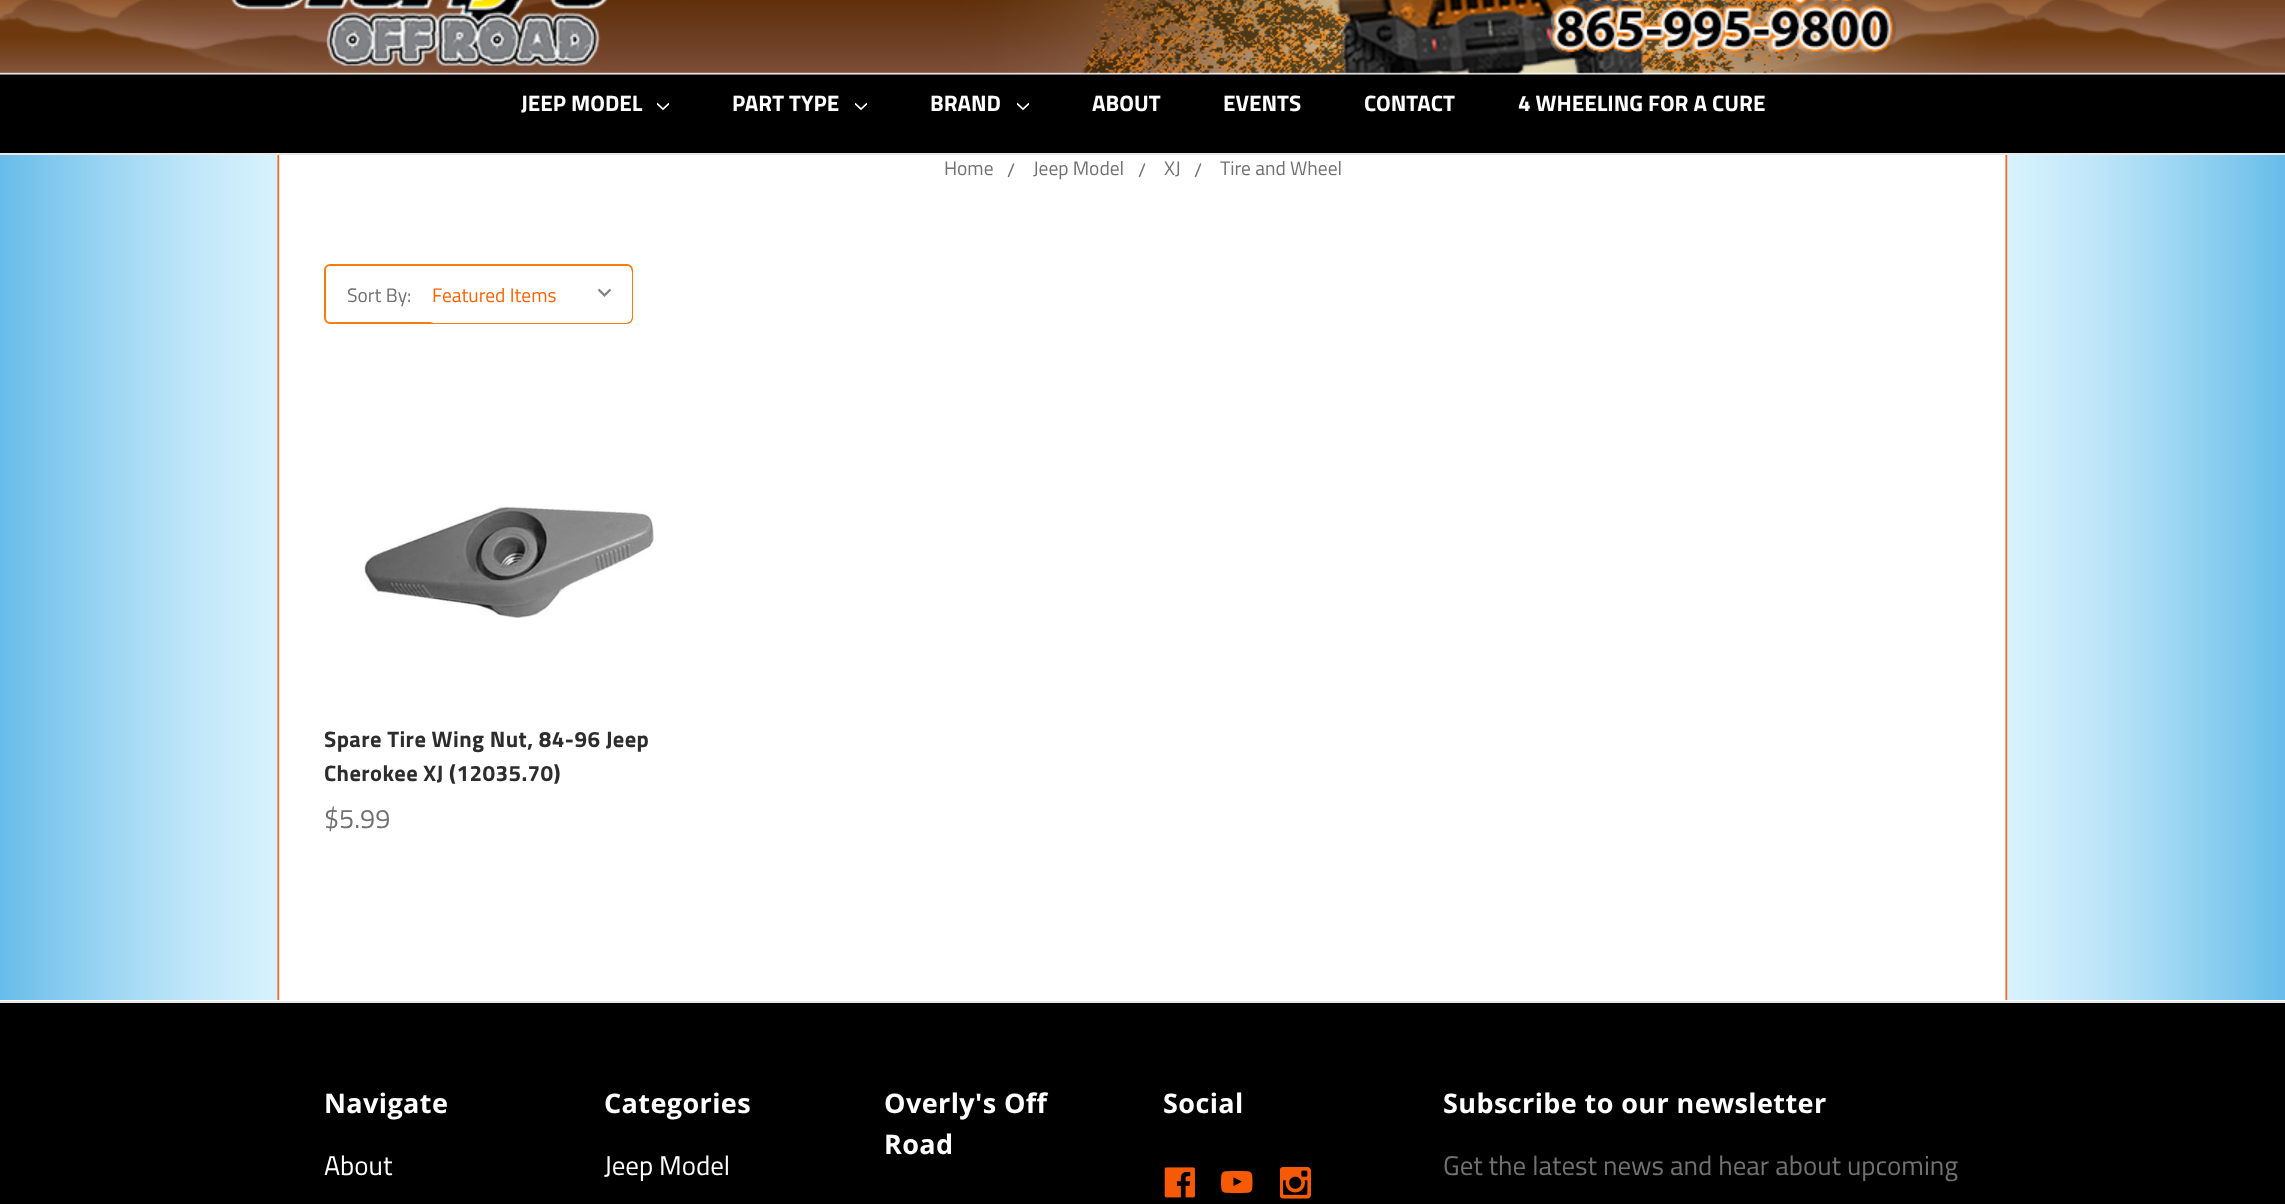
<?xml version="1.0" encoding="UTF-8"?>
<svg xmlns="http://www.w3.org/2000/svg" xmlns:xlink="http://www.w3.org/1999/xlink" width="2285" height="1204">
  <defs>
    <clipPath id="clip1"><rect x="326" y="266" width="306" height="57" rx="5" /></clipPath>
  </defs>
  <rect width="100%" height="100%" fill="#ffffff" />
  <image x="0" y="0" width="2285" height="153" xlink:href="image1.png" />
  <rect y="153" width="2285" height="2" fill="#e8e8e8" />
  <image x="231" y="0" width="377" height="66" xlink:href="image2.png" />
  <image x="657" y="102" width="12" height="9" xlink:href="image3.png" />
  <image x="855" y="102" width="12" height="9" xlink:href="image3.png" />
  <image x="1017" y="102" width="12" height="9" xlink:href="image3.png" />
  <image x="0" y="155" width="2285" height="845" xlink:href="image4.png" />
  <rect x="325" y="265" width="307" height="58" rx="5" fill="none" stroke="#f57c0d" stroke-width="2" />
  <g clip-path="url(#clip1)">
    <rect x="428" y="266" width="204" height="57" rx="6" fill="#ffffff" />
  </g>
  <image x="597" y="288" width="15" height="9" xlink:href="image5.png" />
  <image x="364" y="505" width="290" height="113" xlink:href="image6.png" />
  <rect y="1003" width="2285" height="201" fill="#000000" />
  <rect y="1001" width="2285" height="2" fill="#e8e8e8" />
  <image x="1164" y="1167" width="31" height="31" xlink:href="image7.png" />
  <image x="1221" y="1170" width="32" height="24" xlink:href="image8.png" />
  <image x="1280" y="1167" width="31" height="32" xlink:href="image9.png" />
  <text x="521" y="111" style="font-family: Titillium Web; font-size: 22.5px; font-weight: bold; fill: #ffffff">JEEP MODEL</text>
  <text x="732" y="111" style="font-family: Titillium Web; font-size: 22.5px; font-weight: bold; fill: #ffffff">PART TYPE</text>
  <text x="930" y="111" style="font-family: Titillium Web; font-size: 22.5px; font-weight: bold; fill: #ffffff">BRAND</text>
  <text x="1092" y="111" style="font-family: Titillium Web; font-size: 22.5px; font-weight: bold; fill: #ffffff">ABOUT</text>
  <text x="1223" y="111" style="font-family: Titillium Web; font-size: 22.5px; font-weight: bold; fill: #ffffff">EVENTS</text>
  <text x="1364" y="111" style="font-family: Titillium Web; font-size: 22.5px; font-weight: bold; fill: #ffffff">CONTACT</text>
  <text x="1518" y="111" style="font-family: Titillium Web; font-size: 22.5px; font-weight: bold; fill: #ffffff">4 WHEELING FOR A CURE</text>
  <text x="944" y="175" style="font-family: Titillium Web; font-size: 19.5px; fill: #727171">Home</text>
  <text x="1007" y="177" style="font-family: Titillium Web; font-size: 19.5px; fill: #727171">/</text>
  <text x="1033" y="175" style="font-family: Titillium Web; font-size: 19.5px; fill: #727171">Jeep Model</text>
  <text x="1138" y="177" style="font-family: Titillium Web; font-size: 19.5px; fill: #727171">/</text>
  <text x="1164" y="175" style="font-family: Titillium Web; font-size: 19.5px; fill: #727171">XJ</text>
  <text x="1194" y="177" style="font-family: Titillium Web; font-size: 19.5px; fill: #727171">/</text>
  <text x="1220" y="175" style="font-family: Titillium Web; font-size: 19.5px; fill: #727171">Tire and Wheel</text>
  <text x="347" y="302" style="font-family: Titillium Web; font-size: 19.5px; fill: #727171">Sort By:</text>
  <text x="432" y="302" style="font-family: Titillium Web; font-size: 19.5px; fill: #fc6304">Featured Items</text>
  <text x="324" y="747" style="font-family: Titillium Web; font-size: 22.5px; font-weight: bold; letter-spacing: 0.4px; fill: #2d2d2d">Spare Tire Wing Nut, 84-96 Jeep</text>
  <text x="324" y="781" style="font-family: Titillium Web; font-size: 22.5px; font-weight: bold; letter-spacing: 0.4px; fill: #2d2d2d">Cherokee XJ (12035.70)</text>
  <text x="324" y="828" style="font-family: Titillium Web; font-size: 27px; fill: #727171">$5.99</text>
  <text x="324" y="1113" style="font-family: Open Sans; font-size: 27px; font-weight: bold; letter-spacing: 0.4px; fill: #ffffff">Navigate</text>
  <text x="324" y="1175" style="font-family: Titillium Web; font-size: 27px; fill: #ffffff">About</text>
  <text x="604" y="1113" style="font-family: Open Sans; font-size: 27px; font-weight: bold; letter-spacing: 0.4px; fill: #ffffff">Categories</text>
  <text x="604" y="1175" style="font-family: Titillium Web; font-size: 27px; fill: #ffffff">Jeep Model</text>
  <text x="884" y="1113" style="font-family: Open Sans; font-size: 27px; font-weight: bold; letter-spacing: 0.4px; fill: #ffffff">Overly's Off</text>
  <text x="884" y="1154" style="font-family: Open Sans; font-size: 27px; font-weight: bold; letter-spacing: 0.4px; fill: #ffffff">Road</text>
  <text x="1163" y="1113" style="font-family: Open Sans; font-size: 27px; font-weight: bold; letter-spacing: 0.4px; fill: #ffffff">Social</text>
  <text x="1443" y="1113" style="font-family: Open Sans; font-size: 27px; font-weight: bold; letter-spacing: 0.4px; fill: #ffffff">Subscribe to our newsletter</text>
  <text x="1443" y="1175" style="font-family: Titillium Web; font-size: 27px; fill: #727171">Get the latest news and hear about upcoming</text>
</svg>
